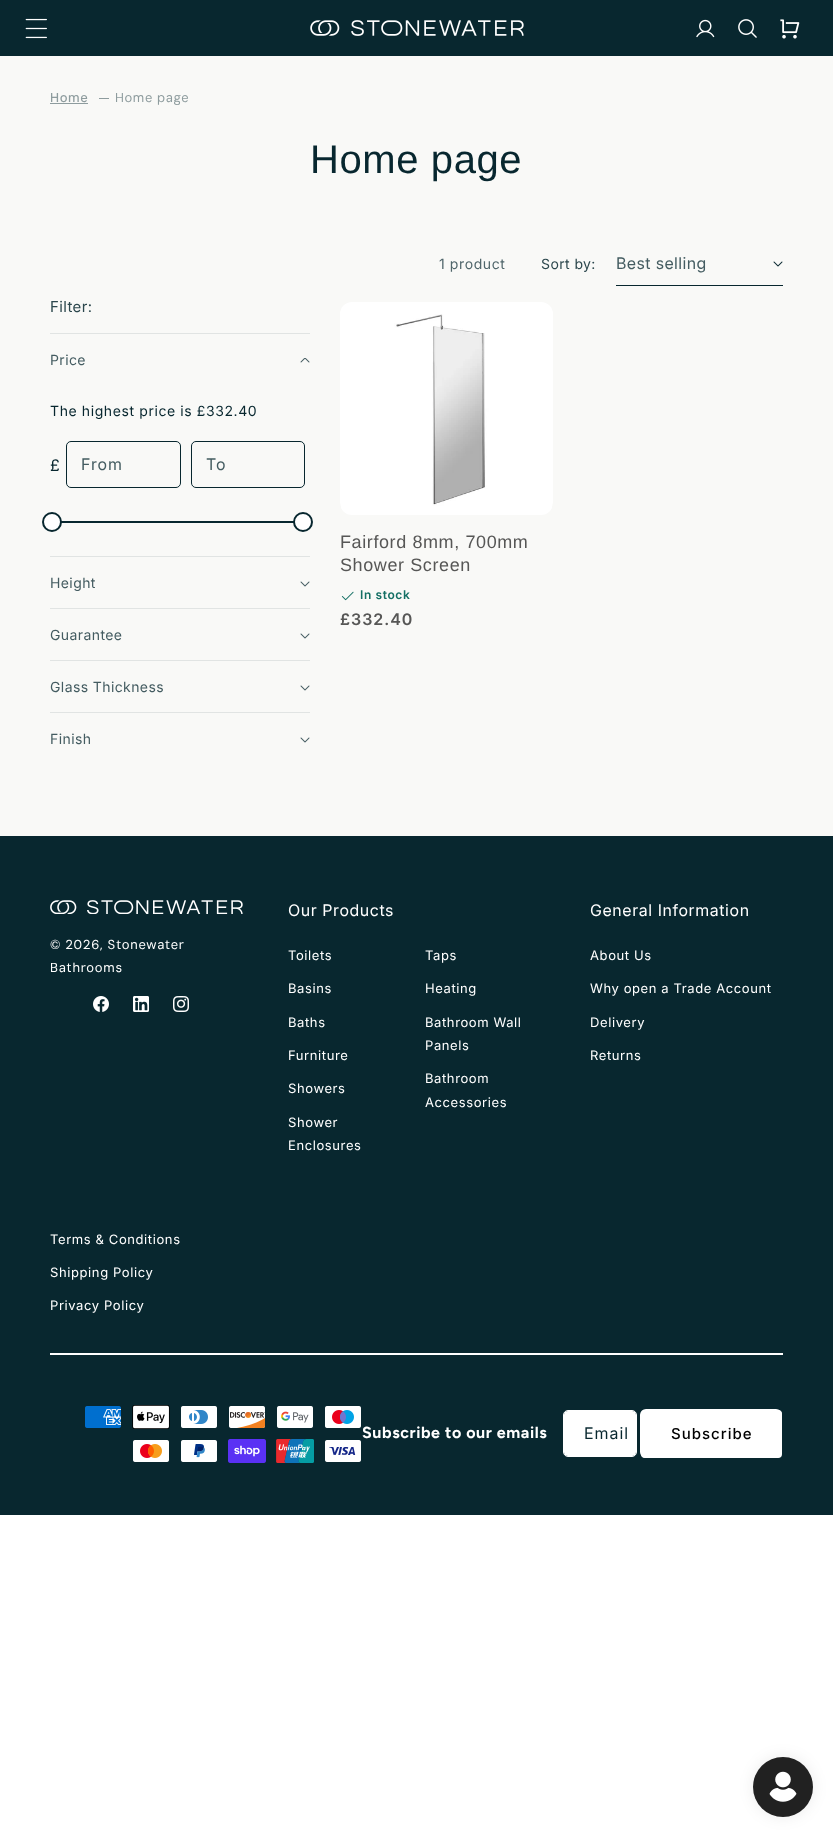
<?xml version="1.0" encoding="UTF-8"?>
<svg xmlns="http://www.w3.org/2000/svg" xmlns:xlink="http://www.w3.org/1999/xlink" width="833" height="1837">
  <rect width="100%" height="100%" fill="#ffffff" />
  <rect width="833" height="56" fill="#08272f" />
  <image x="25" y="18" width="22" height="21" xlink:href="image1.png" />
  <image x="310" y="20" width="214" height="16" xlink:href="image2.png" />
  <image x="696" y="19" width="19" height="19" xlink:href="image3.png" />
  <image x="738" y="19" width="19" height="19" xlink:href="image4.png" />
  <image x="780" y="19" width="20" height="20" xlink:href="image5.png" />
  <rect y="56" width="833" height="780" fill="#f9f9f7" />
  <rect x="50" y="103" width="38" height="1" fill="#8e9c9e" />
  <rect x="99" y="98" width="10" height="1" fill="#8e9c9e" />
  <rect x="616" y="285" width="167" height="1" fill="#08272f" />
  <image x="773" y="261" width="10" height="6" xlink:href="image6.png" />
  <rect x="50" y="333" width="260" height="1" fill="#e1e4e3" />
  <image x="300" y="358" width="10" height="5" xlink:href="image7.png" />
  <rect x="66.5" y="441.5" width="114" height="46" rx="4.5" fill="none" stroke="#08272f" />
  <rect x="191.5" y="441.5" width="113" height="46" rx="4.5" fill="none" stroke="#08272f" />
  <rect x="61" y="521" width="233" height="2" fill="#08272f" />
  <circle cx="52" cy="522" r="9" fill="#ffffff" stroke="#08272f" stroke-width="2" />
  <circle cx="303" cy="522" r="9" fill="#ffffff" stroke="#08272f" stroke-width="2" />
  <rect x="50" y="556" width="260" height="1" fill="#e1e4e3" />
  <image x="300" y="581" width="10" height="6" xlink:href="image8.png" />
  <rect x="50" y="608" width="260" height="1" fill="#e1e4e3" />
  <image x="300" y="633" width="10" height="6" xlink:href="image8.png" />
  <rect x="50" y="660" width="260" height="1" fill="#e1e4e3" />
  <image x="300" y="685" width="10" height="6" xlink:href="image8.png" />
  <rect x="50" y="712" width="260" height="1" fill="#e1e4e3" />
  <image x="300" y="737" width="10" height="6" xlink:href="image8.png" />
  <rect x="340" y="302" width="213" height="212" rx="12" fill="#ffffff" />
  <image x="341" y="314" width="211" height="201" xlink:href="image9.png" />
  <image x="341" y="591" width="13" height="10" xlink:href="image10.png" />
  <rect y="836" width="833" height="679" fill="#08272f" />
  <rect x="50" y="1353" width="733" height="2" fill="#ffffff" />
  <image x="50" y="900" width="193" height="14" xlink:href="image11.png" />
  <image x="93" y="996" width="16" height="16" xlink:href="image12.png" />
  <image x="133" y="996" width="16" height="16" xlink:href="image13.png" />
  <image x="173" y="996" width="16" height="16" xlink:href="image14.png" />
  <image x="85" y="1406" width="36" height="22" xlink:href="image15.png" />
  <image x="132" y="1405" width="38" height="24" xlink:href="image16.png" />
  <image x="181" y="1406" width="36" height="22" xlink:href="image17.png" />
  <image x="229" y="1406" width="36" height="22" xlink:href="image18.png" />
  <image x="277" y="1406" width="36" height="22" xlink:href="image19.png" />
  <image x="325" y="1406" width="36" height="22" xlink:href="image20.png" />
  <image x="133" y="1440" width="36" height="22" xlink:href="image21.png" />
  <image x="181" y="1440" width="36" height="22" xlink:href="image22.png" />
  <image x="228" y="1439" width="38" height="24" xlink:href="image23.png" />
  <image x="276" y="1439" width="38" height="24" xlink:href="image24.png" />
  <image x="325" y="1440" width="36" height="22" xlink:href="image25.png" />
  <rect x="564" y="1411" width="72" height="45" rx="4" fill="#ffffff" />
  <rect x="563.5" y="1410.5" width="73" height="46" rx="4.5" fill="none" stroke="#ffffff" />
  <rect x="641" y="1410" width="141" height="48" rx="4" fill="#ffffff" />
  <rect x="641" y="1410" width="140" height="47" rx="5" fill="none" stroke="#ffffff" stroke-width="2" />
  <rect x="753" y="1757" width="60" height="60" rx="30" fill="#000000" fill-opacity="0.08" filter="blur(7.5px)" />
  <circle cx="783" cy="1787" r="30" fill="#212121" />
  <image x="769" y="1771" width="28" height="31" xlink:href="image26.png" />
  <text x="50" y="102" style="font-family: DM Sans; font-size: 13px; font-weight: 500; letter-spacing: 0.6px; fill: #8e9c9e">Home</text>
  <text x="115" y="102" style="font-family: DM Sans; font-size: 13px; letter-spacing: 0.6px; fill: #8e9c9e">Home page</text>
  <text x="310" y="173" style="font-family: Liberation Sans; font-size: 40px; letter-spacing: 0.6px; fill: #08272f">Home page</text>
  <text x="439" y="269" style="font-family: Inter; font-size: 14px; letter-spacing: 0.6px; fill: #50666b">1 product</text>
  <text x="541" y="269" style="font-family: Inter; font-size: 14px; letter-spacing: 0.4px; fill: #2c474d">Sort by:</text>
  <text x="616" y="269" style="font-family: 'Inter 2'; font-size: 16px; letter-spacing: 0.4px; fill: #445c61">Best selling</text>
  <text x="50" y="312" style="font-family: 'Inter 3'; font-size: 15px; letter-spacing: 0.4px; fill: #2c474d">Filter:</text>
  <text x="50" y="365" style="font-family: Inter; font-size: 14px; letter-spacing: 0.4px; fill: #445c61">Price</text>
  <text x="50" y="416" style="font-family: Inter; font-size: 14px; letter-spacing: 0.6px; fill: #08272f">The highest price is £332.40</text>
  <text x="50" y="471" style="font-family: 'Inter 2'; font-size: 16px; letter-spacing: 0.6px; fill: #08272f">£</text>
  <text x="81" y="470" style="font-family: 'Inter 2'; font-size: 16px; letter-spacing: 1px; fill: #445c61">From</text>
  <text x="206" y="470" style="font-family: 'Inter 2'; font-size: 16px; letter-spacing: 1px; fill: #445c61">To</text>
  <text x="50" y="588" style="font-family: Inter; font-size: 14px; letter-spacing: 0.4px; fill: #445c61">Height</text>
  <text x="50" y="640" style="font-family: Inter; font-size: 14px; letter-spacing: 0.4px; fill: #445c61">Guarantee</text>
  <text x="50" y="692" style="font-family: Inter; font-size: 14px; letter-spacing: 0.4px; fill: #445c61">Glass Thickness</text>
  <text x="50" y="744" style="font-family: Inter; font-size: 14px; letter-spacing: 0.4px; fill: #445c61">Finish</text>
  <text x="340" y="548" style="font-family: Liberation Sans; font-size: 18px; letter-spacing: 0.6px; fill: #575756">Fairford 8mm, 700mm</text>
  <text x="340" y="571" style="font-family: Liberation Sans; font-size: 18px; letter-spacing: 0.6px; fill: #575756">Shower Screen</text>
  <text x="360" y="599" style="font-family: Inter; font-size: 12px; font-weight: 600; letter-spacing: 0.6px; fill: #136f64">In stock</text>
  <text x="340" y="625" style="font-family: 'Inter 2'; font-size: 16px; font-weight: 600; letter-spacing: 1px; fill: #575756">£332.40</text>
  <text x="50" y="949" style="font-family: DM Sans; font-size: 13px; letter-spacing: 0.75px; fill: #ffffff">© 2026, Stonewater</text>
  <text x="50" y="972" style="font-family: DM Sans; font-size: 13px; letter-spacing: 0.75px; fill: #ffffff">Bathrooms</text>
  <text x="288" y="916" style="font-family: 'Inter 2'; font-size: 16px; letter-spacing: 0.6px; fill: #ffffff">Our Products</text>
  <text x="288" y="960" style="font-family: Inter; font-size: 13px; letter-spacing: 0.6px; fill: #ffffff">Toilets</text>
  <text x="425" y="960" style="font-family: Inter; font-size: 13px; letter-spacing: 0.6px; fill: #ffffff">Taps</text>
  <text x="288" y="993" style="font-family: Inter; font-size: 13px; letter-spacing: 0.6px; fill: #ffffff">Basins</text>
  <text x="425" y="993" style="font-family: Inter; font-size: 13px; letter-spacing: 0.6px; fill: #ffffff">Heating</text>
  <text x="288" y="1027" style="font-family: Inter; font-size: 13px; letter-spacing: 0.6px; fill: #ffffff">Baths</text>
  <text x="425" y="1027" style="font-family: Inter; font-size: 13px; letter-spacing: 0.6px; fill: #ffffff">Bathroom Wall</text>
  <text x="425" y="1050" style="font-family: Inter; font-size: 13px; letter-spacing: 0.6px; fill: #ffffff">Panels</text>
  <text x="288" y="1060" style="font-family: Inter; font-size: 13px; letter-spacing: 0.6px; fill: #ffffff">Furniture</text>
  <text x="288" y="1093" style="font-family: Inter; font-size: 13px; letter-spacing: 0.6px; fill: #ffffff">Showers</text>
  <text x="425" y="1083" style="font-family: Inter; font-size: 13px; letter-spacing: 0.6px; fill: #ffffff">Bathroom</text>
  <text x="425" y="1107" style="font-family: Inter; font-size: 13px; letter-spacing: 0.6px; fill: #ffffff">Accessories</text>
  <text x="288" y="1127" style="font-family: Inter; font-size: 13px; letter-spacing: 0.6px; fill: #ffffff">Shower</text>
  <text x="288" y="1150" style="font-family: Inter; font-size: 13px; letter-spacing: 0.6px; fill: #ffffff">Enclosures</text>
  <text x="590" y="916" style="font-family: 'Inter 2'; font-size: 16px; letter-spacing: 0.6px; fill: #ffffff">General Information</text>
  <text x="590" y="960" style="font-family: Inter; font-size: 13px; letter-spacing: 0.6px; fill: #ffffff">About Us</text>
  <text x="590" y="993" style="font-family: Inter; font-size: 13px; letter-spacing: 0.6px; fill: #ffffff">Why open a Trade Account</text>
  <text x="590" y="1027" style="font-family: Inter; font-size: 13px; letter-spacing: 0.6px; fill: #ffffff">Delivery</text>
  <text x="590" y="1060" style="font-family: Inter; font-size: 13px; letter-spacing: 0.6px; fill: #ffffff">Returns</text>
  <text x="50" y="1244" style="font-family: Inter; font-size: 13px; letter-spacing: 0.6px; fill: #ffffff">Terms &amp; Conditions</text>
  <text x="50" y="1277" style="font-family: Inter; font-size: 13px; letter-spacing: 0.6px; fill: #ffffff">Shipping Policy</text>
  <text x="50" y="1310" style="font-family: Inter; font-size: 13px; letter-spacing: 0.6px; fill: #ffffff">Privacy Policy</text>
  <text x="362" y="1438" style="font-family: Figtree; font-size: 16px; font-weight: bold; letter-spacing: 0.6px; fill: #ffffff">Subscribe to our emails</text>
  <text x="584" y="1439" style="font-family: 'Inter 2'; font-size: 16px; letter-spacing: 1px; fill: #08272f">Email</text>
  <text x="671" y="1439" style="font-family: Inter; font-size: 15px; font-weight: 500; letter-spacing: 1px; fill: #000000">Subscribe</text>
</svg>
